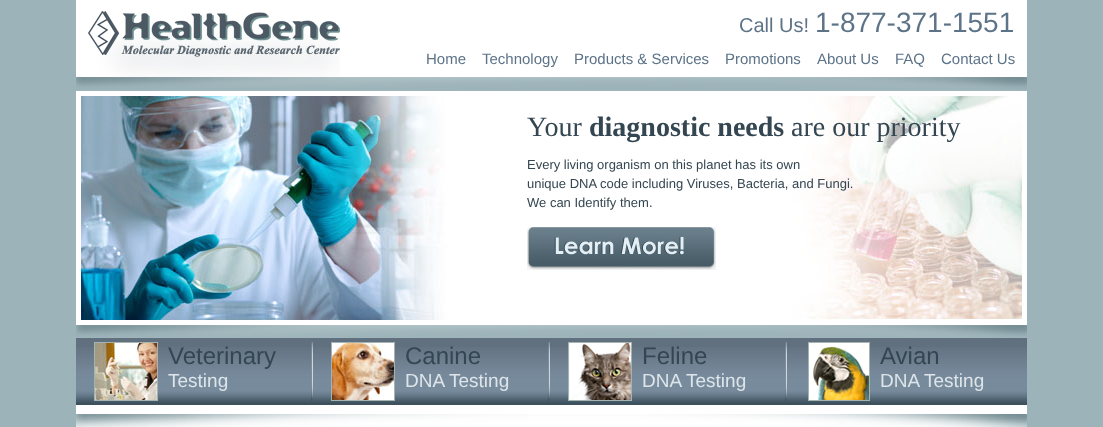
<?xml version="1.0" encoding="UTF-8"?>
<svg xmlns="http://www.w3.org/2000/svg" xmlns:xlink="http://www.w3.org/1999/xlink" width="1103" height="427">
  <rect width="100%" height="100%" fill="#9cb3b9" />
  <rect x="76" width="951" height="77" fill="#ffffff" />
  <image x="76" y="11" width="264" height="66" xlink:href="image1.png" />
  <image x="76" y="77" width="951" height="14" xlink:href="image2.png" />
  <rect x="76" y="91" width="951" height="234" fill="#ffffff" />
  <image x="81" y="96" width="941" height="224" xlink:href="image3.png" />
  <image x="527" y="227" width="189" height="43" xlink:href="image4.png" />
  <image x="76" y="325" width="951" height="13" xlink:href="image5.png" />
  <rect x="76" y="338" width="951" height="9" fill="#61707e" />
  <image x="76" y="347" width="951" height="58" xlink:href="image6.png" />
  <image x="311" y="342" width="2" height="59" xlink:href="image7.png" />
  <rect x="94.5" y="342.5" width="63" height="58" fill="none" stroke="#a5b3b3" />
  <image x="95" y="343" width="62" height="57" xlink:href="image8.png" />
  <image x="548" y="342" width="2" height="59" xlink:href="image7.png" />
  <rect x="331.5" y="342.5" width="63" height="58" fill="none" stroke="#a5b3b3" />
  <image x="332" y="343" width="62" height="57" xlink:href="image9.png" />
  <image x="785" y="342" width="2" height="59" xlink:href="image7.png" />
  <rect x="568.5" y="342.5" width="63" height="58" fill="none" stroke="#a5b3b3" />
  <image x="569" y="343" width="62" height="57" xlink:href="image10.png" />
  <rect x="808.5" y="342.5" width="61" height="58" fill="none" stroke="#a5b3b3" />
  <image x="809" y="343" width="60" height="57" xlink:href="image11.png" />
  <rect x="76" y="405" width="951" height="9" fill="#ffffff" />
  <image x="76" y="414" width="951" height="13" xlink:href="image12.png" />
  <text x="739" y="32" style="font-family: Liberation Sans; font-size: 20px; fill: #5d7388">Call Us!</text>
  <text x="815" y="32" style="font-family: Liberation Sans; font-size: 28px; fill: #5d7388">1-877-371-1551</text>
  <text x="426" y="64" style="font-family: Liberation Sans; font-size: 15px; fill: #5d7388">Home</text>
  <text x="482" y="64" style="font-family: Liberation Sans; font-size: 15px; fill: #5d7388">Technology</text>
  <text x="574" y="64" style="font-family: Liberation Sans; font-size: 15px; fill: #5d7388">Products &amp; Services</text>
  <text x="725" y="64" style="font-family: Liberation Sans; font-size: 15px; fill: #5d7388">Promotions</text>
  <text x="817" y="64" style="font-family: Liberation Sans; font-size: 15px; fill: #5d7388">About Us</text>
  <text x="895" y="64" style="font-family: Liberation Sans; font-size: 15px; fill: #5d7388">FAQ</text>
  <text x="941" y="64" style="font-family: Liberation Sans; font-size: 15px; fill: #5d7388">Contact Us</text>
  <text x="527" y="136" style="font-family: Liberation Serif; font-size: 28px; fill: #344651">Your</text>
  <text x="589" y="136" style="font-family: Liberation Serif; font-size: 28px; font-weight: bold; fill: #344651">diagnostic needs</text>
  <text x="791" y="136" style="font-family: Liberation Serif; font-size: 28px; fill: #344651">are our priority</text>
  <text x="527" y="169" style="font-family: Liberation Sans; font-size: 13px; fill: #344651">Every living organism on this planet has its own</text>
  <text x="527" y="188" style="font-family: Liberation Sans; font-size: 13px; fill: #344651">unique DNA code including Viruses, Bacteria, and Fungi.</text>
  <text x="527" y="207" style="font-family: Liberation Sans; font-size: 13px; fill: #344651">We can Identify them.</text>
  <text x="168" y="364" style="font-family: Liberation Sans; font-size: 24px; fill: #344651">Veterinary</text>
  <text x="168" y="387" style="font-family: Liberation Sans; font-size: 19px; fill: #dee5ea">Testing</text>
  <text x="405" y="364" style="font-family: Liberation Sans; font-size: 24px; fill: #344651">Canine</text>
  <text x="405" y="387" style="font-family: Liberation Sans; font-size: 19px; fill: #dee5ea">DNA Testing</text>
  <text x="642" y="364" style="font-family: Liberation Sans; font-size: 24px; fill: #344651">Feline</text>
  <text x="642" y="387" style="font-family: Liberation Sans; font-size: 19px; fill: #dee5ea">DNA Testing</text>
  <text x="880" y="364" style="font-family: Liberation Sans; font-size: 24px; fill: #344651">Avian</text>
  <text x="880" y="387" style="font-family: Liberation Sans; font-size: 19px; fill: #dee5ea">DNA Testing</text>
</svg>
